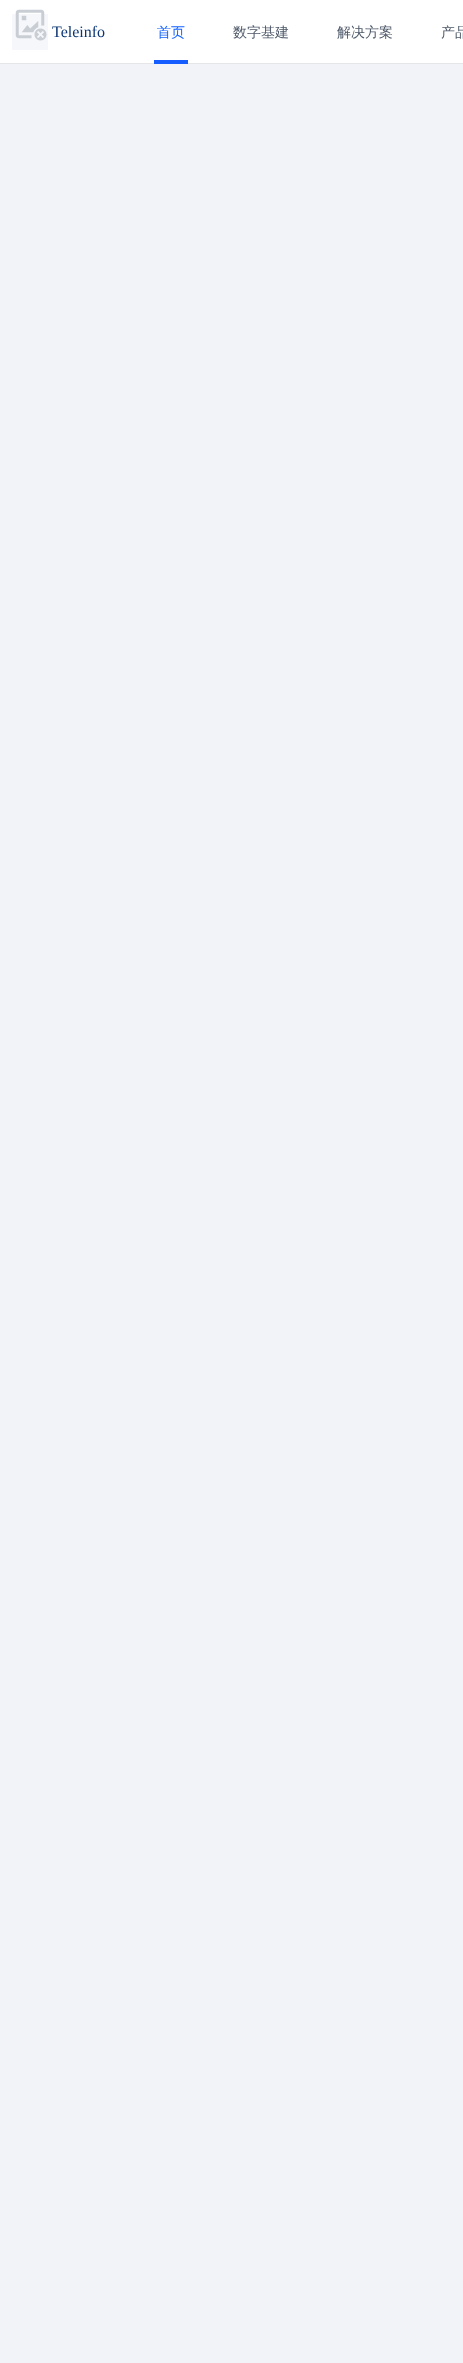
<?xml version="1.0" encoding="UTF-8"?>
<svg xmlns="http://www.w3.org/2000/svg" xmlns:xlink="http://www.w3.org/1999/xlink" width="463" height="2363">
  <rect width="100%" height="100%" fill="#ffffff" />
  <rect y="63" width="463" height="1" fill="#e5e6e8" />
  <rect x="12" y="14" width="36" height="36" fill="#f6f7fb" />
  <image x="15" y="9" width="32" height="32" xlink:href="image1.png" />
  <rect x="154" y="60" width="34" height="4" fill="#165dff" />
  <rect y="64" width="463" height="2299" fill="#f2f3f8" />
  <text x="52" y="37" style="font-family: Liberation Serif; font-size: 16px; fill: #0b3673">Teleinfo</text>
  <text x="157" y="37" style="font-family: WenQuanYi Zen Hei; font-size: 14px; font-weight: 500; fill: #1664ff">首页</text>
  <text x="233" y="37" style="font-family: WenQuanYi Zen Hei; font-size: 14px; font-weight: 500; fill: #4e5969">数字基建</text>
  <text x="337" y="37" style="font-family: WenQuanYi Zen Hei; font-size: 14px; font-weight: 500; fill: #4e5969">解决方案</text>
  <text x="441" y="37" style="font-family: WenQuanYi Zen Hei; font-size: 14px; font-weight: 500; fill: #4e5969">产品</text>
</svg>
